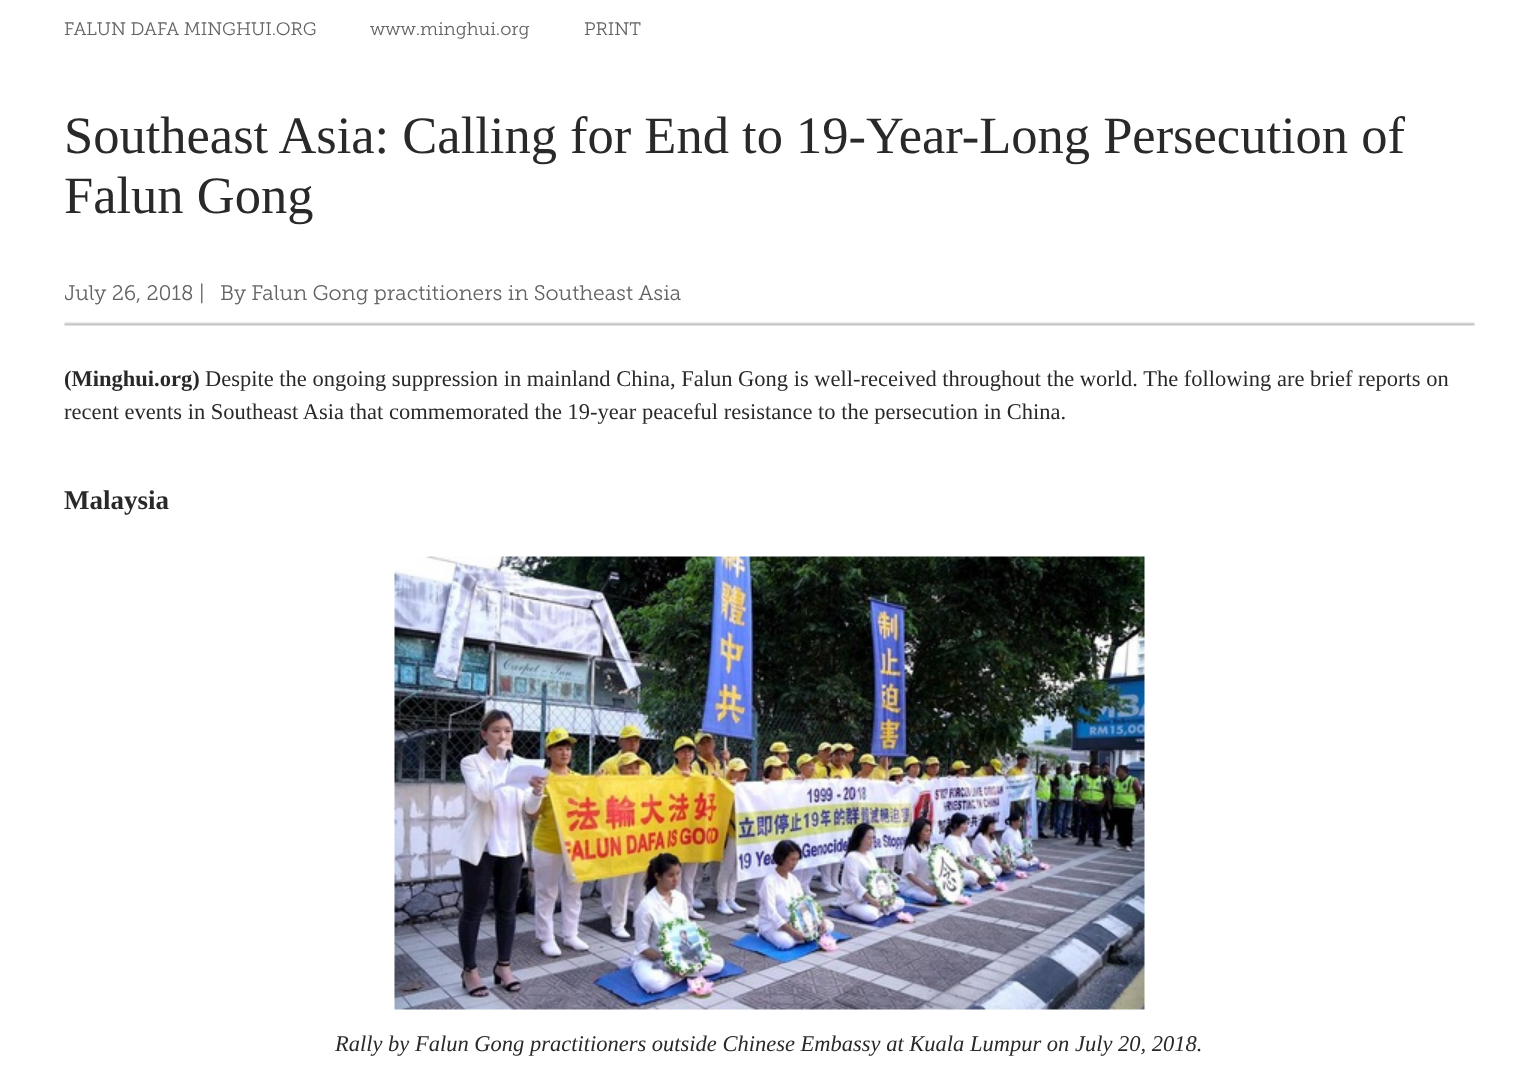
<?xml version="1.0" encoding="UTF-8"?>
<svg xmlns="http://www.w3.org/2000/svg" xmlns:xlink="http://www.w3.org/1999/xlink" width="1537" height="1068">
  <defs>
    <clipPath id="clip1"><rect x="65" y="279" width="1410" height="47" /></clipPath>
  </defs>
  <rect width="100%" height="100%" fill="#ffffff" />
  <image x="64" y="322" width="1411" height="4" xlink:href="image1.png" />
  <image x="394" y="556" width="751" height="454" xlink:href="image2.png" />
  <text x="64" y="35" style="font-family: Museo Slab; font-size: 18px; font-weight: 300; fill: #636363">FALUN DAFA MINGHUI.ORG</text>
  <text x="370" y="35" style="font-family: Museo Slab; font-size: 18px; font-weight: 300; fill: #636363">www.minghui.org</text>
  <text x="584" y="35" style="font-family: Museo Slab; font-size: 18px; font-weight: 300; fill: #636363">PRINT</text>
  <text x="64" y="153" style="font-family: Liberation Serif; font-size: 52.5px; fill: #292929">Southeast Asia: Calling for End to 19-Year-Long Persecution of</text>
  <text x="64" y="213" style="font-family: Liberation Serif; font-size: 52.5px; fill: #292929">Falun Gong</text>
  <g clip-path="url(#clip1)">
    <text x="64" y="300" style="font-family: Museo Slab; font-size: 21px; font-weight: 300; fill: #636363">July 26, 2018</text>
  </g>
  <text x="199" y="300" style="font-family: Museo Slab; font-size: 21px; font-weight: 300; fill: #636363">|</text>
  <text x="220" y="300" style="font-family: Museo Slab; font-size: 21px; font-weight: 300; fill: #636363">By Falun Gong practitioners in Southeast Asia</text>
  <text x="64" y="386" style="font-family: Liberation Serif; font-size: 22.5px; font-weight: bold; fill: #292929">(Minghui.org)</text>
  <text x="205" y="386" style="font-family: Liberation Serif; font-size: 22.5px; fill: #292929">Despite the ongoing suppression in mainland China, Falun Gong is well-received throughout the world. The following are brief reports on</text>
  <text x="64" y="419" style="font-family: Liberation Serif; font-size: 22.5px; fill: #292929">recent events in Southeast Asia that commemorated the 19-year peaceful resistance to the persecution in China.</text>
  <text x="64" y="509" style="font-family: Liberation Serif; font-size: 27px; font-weight: bold; fill: #292929">Malaysia</text>
  <text x="335" y="1051" style="font-family: Liberation Serif; font-size: 22.5px; font-style: italic; fill: #292929">Rally by Falun Gong practitioners outside Chinese Embassy at Kuala Lumpur on July 20, 2018.</text>
</svg>
